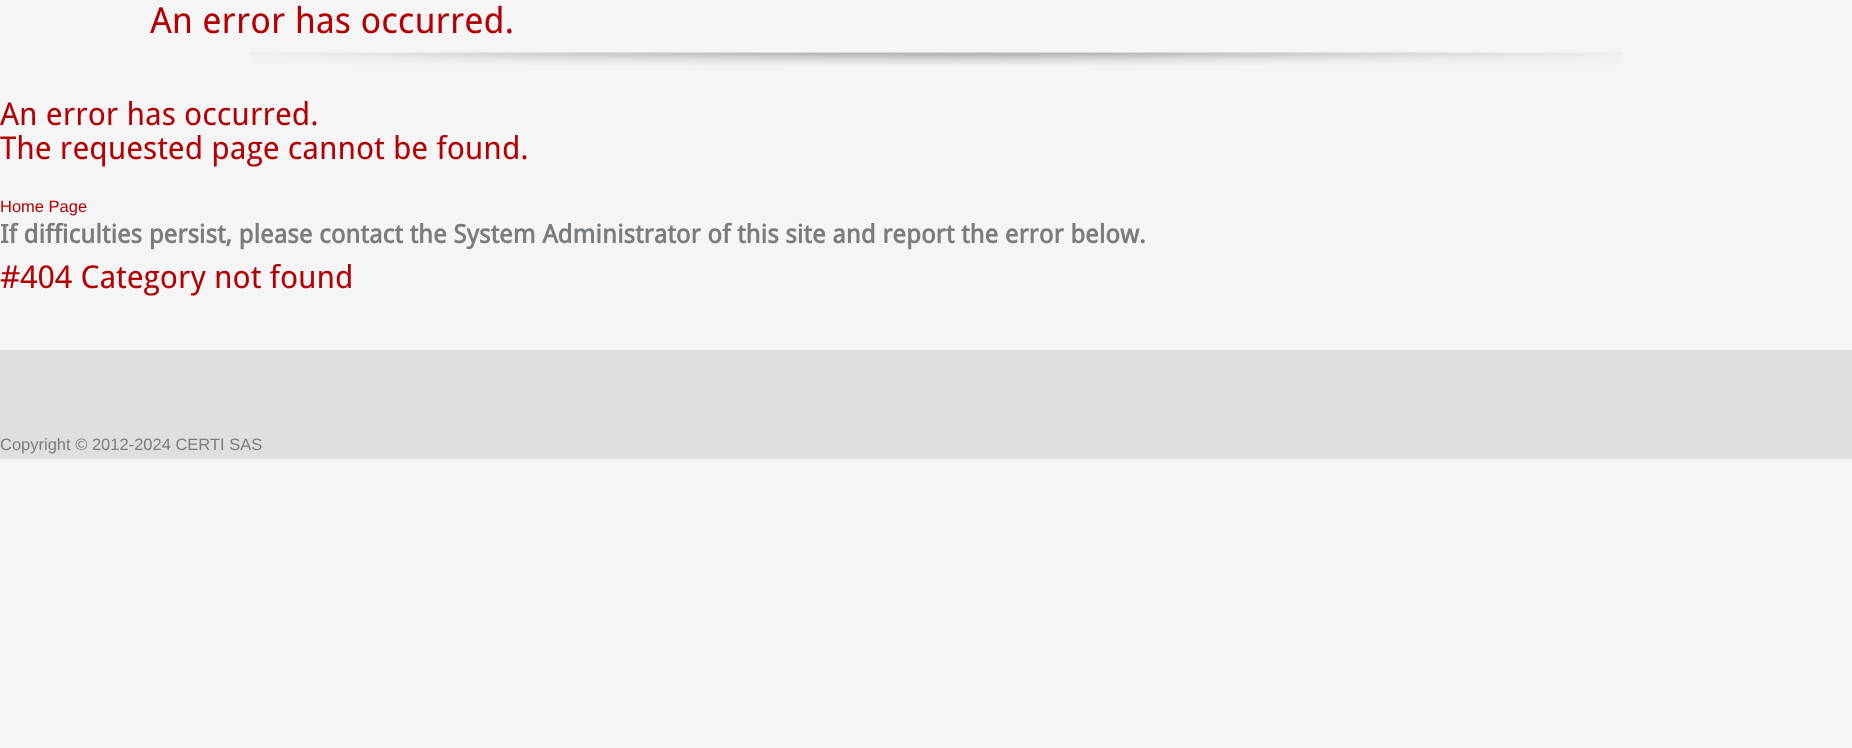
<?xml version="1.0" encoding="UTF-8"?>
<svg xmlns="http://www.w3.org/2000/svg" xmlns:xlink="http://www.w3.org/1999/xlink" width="1852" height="748">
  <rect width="100%" height="100%" fill="#f5f5f5" />
  <image x="250" y="52" width="1372" height="14" xlink:href="image1.png" />
  <rect y="350" width="1852" height="109" fill="#dedfdf" />
  <text x="150" y="33" style="font-family: Droid Sans; font-size: 36px; fill: #b30004">An error has occurred.</text>
  <text x="0" y="125" style="font-family: Droid Sans; font-size: 31.5px; fill: #b30004">An error has occurred.</text>
  <text x="0" y="159" style="font-family: Droid Sans; font-size: 31.5px; fill: #b30004">The requested page cannot be found.</text>
  <text x="0" y="212" style="font-family: Liberation Sans; font-size: 16.5px; fill: #b30004">Home Page</text>
  <text x="0" y="243" style="font-family: Droid Sans; font-size: 25.5px; font-weight: bold; fill: #7a7d80">If difficulties persist, please contact the System Administrator of this site and report the error below.</text>
  <text x="0" y="288" style="font-family: Droid Sans; font-size: 31.5px; fill: #b30004">#404 Category not found</text>
  <text x="0" y="450" style="font-family: Liberation Sans; font-size: 16.5px; fill: #7a7d80">Copyright © 2012-2024 CERTI SAS</text>
</svg>
